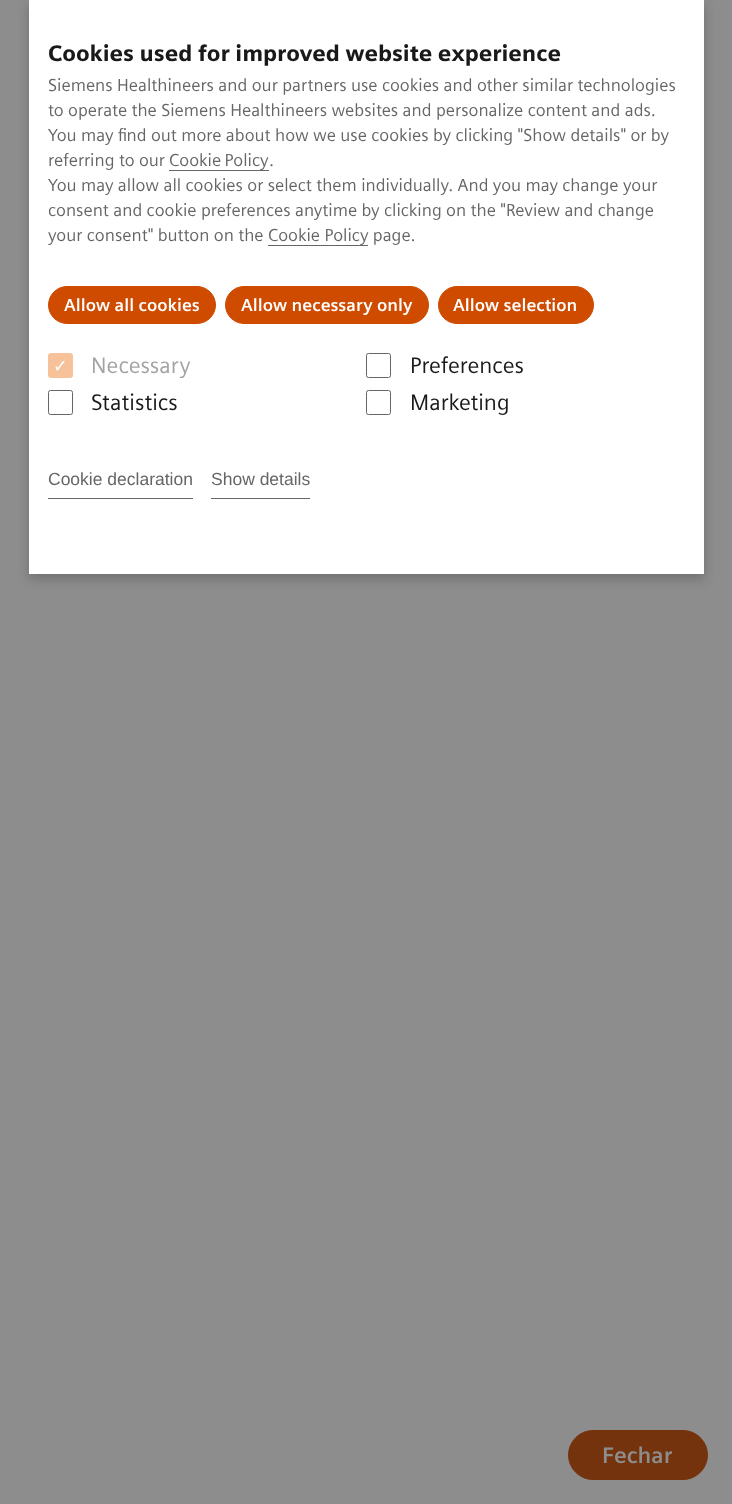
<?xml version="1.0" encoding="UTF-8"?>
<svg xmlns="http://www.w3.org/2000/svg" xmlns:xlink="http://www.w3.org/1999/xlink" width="732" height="1504">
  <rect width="100%" height="100%" fill="#8d8d8d" />
  <rect x="29" y="5" width="675" height="574" fill="#000000" fill-opacity="0.2" filter="blur(5.5px)" />
  <rect x="29" width="675" height="574" fill="#ffffff" />
  <rect x="169" y="170" width="100" height="1" fill="#666666" />
  <rect x="268" y="245" width="100" height="1" fill="#666666" />
  <rect x="48.5" y="286.5" width="167" height="37" rx="18.5" fill="#cf4b00" stroke="#cf4b00" />
  <rect x="225.5" y="286.5" width="203" height="37" rx="18.5" fill="#cf4b00" stroke="#cf4b00" />
  <rect x="438.5" y="286.5" width="155" height="37" rx="18.5" fill="#cf4b00" stroke="#cf4b00" />
  <rect x="48.5" y="353.5" width="24" height="24" rx="2" fill="#f7c29a" stroke="#f7c29a" />
  <rect x="366.5" y="353.5" width="24" height="24" rx="2" fill="none" stroke="#666666" />
  <rect x="48.5" y="390.5" width="24" height="24" rx="2" fill="none" stroke="#666666" />
  <rect x="366.5" y="390.5" width="24" height="24" rx="2" fill="none" stroke="#666666" />
  <rect x="48" y="498" width="145" height="1" fill="#666666" />
  <rect x="211" y="498" width="99" height="1" fill="#666666" />
  <rect x="568.5" y="1430.5" width="139" height="49" rx="24.5" fill="#75330d" stroke="#75330d" />
  <text x="48" y="61" style="font-family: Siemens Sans; font-size: 22.5px; font-weight: 900; fill: #1a1919">Cookies used for improved website experience</text>
  <text x="48" y="91" style="font-family: Siemens Sans; font-size: 17.5px; fill: #666666">Siemens Healthineers and our partners use cookies and other similar technologies</text>
  <text x="48" y="116" style="font-family: Siemens Sans; font-size: 17.5px; fill: #666666">to operate the Siemens Healthineers websites and personalize content and ads.</text>
  <text x="48" y="141" style="font-family: Siemens Sans; font-size: 17.5px; fill: #666666">You may find out more about how we use cookies by clicking "Show details" or by</text>
  <text x="48" y="166" style="font-family: Siemens Sans; font-size: 17.5px; fill: #666666">referring to our</text>
  <text x="169" y="166" word-spacing="-1" style="font-family: Siemens Sans; font-size: 17.5px; fill: #666666">Cookie Policy</text>
  <text x="269" y="166" style="font-family: Siemens Sans; font-size: 17.5px; fill: #666666">.</text>
  <text x="48" y="191" style="font-family: Siemens Sans; font-size: 17.5px; fill: #666666">You may allow all cookies or select them individually. And you may change your</text>
  <text x="48" y="216" style="font-family: Siemens Sans; font-size: 17.5px; fill: #666666">consent and cookie preferences anytime by clicking on the "Review and change</text>
  <text x="48" y="241" style="font-family: Siemens Sans; font-size: 17.5px; fill: #666666">your consent" button on the Cookie Policy page.</text>
  <text x="64" y="311" style="font-family: Siemens Sans; font-size: 17.5px; font-weight: bold; fill: #ffffff">Allow all cookies</text>
  <text x="241" y="311" style="font-family: Siemens Sans; font-size: 17.5px; font-weight: bold; fill: #ffffff">Allow necessary only</text>
  <text x="453" y="311" style="font-family: Siemens Sans; font-size: 17.5px; font-weight: bold; fill: #ffffff">Allow selection</text>
  <text x="53" y="372" style="font-family: DejaVu Sans; font-size: 17.5px; fill: #ffffff">✓</text>
  <text x="91" y="373" style="font-family: Siemens Sans; font-size: 22.5px; fill: #a3a3a3">Necessary</text>
  <text x="410" y="373" style="font-family: Siemens Sans; font-size: 22.5px; fill: #1a1919">Preferences</text>
  <text x="91" y="410" style="font-family: Siemens Sans; font-size: 22.5px; fill: #1a1919">Statistics</text>
  <text x="410" y="410" style="font-family: Siemens Sans; font-size: 22.5px; fill: #1a1919">Marketing</text>
  <text x="48" y="485" style="font-family: Liberation Sans; font-size: 17.5px; fill: #666666">Cookie declaration</text>
  <text x="211" y="485" style="font-family: Liberation Sans; font-size: 17.5px; fill: #666666">Show details</text>
  <text x="602" y="1463" style="font-family: Siemens Sans; font-size: 22.5px; font-weight: bold; fill: #8d8d8d">Fechar</text>
</svg>
